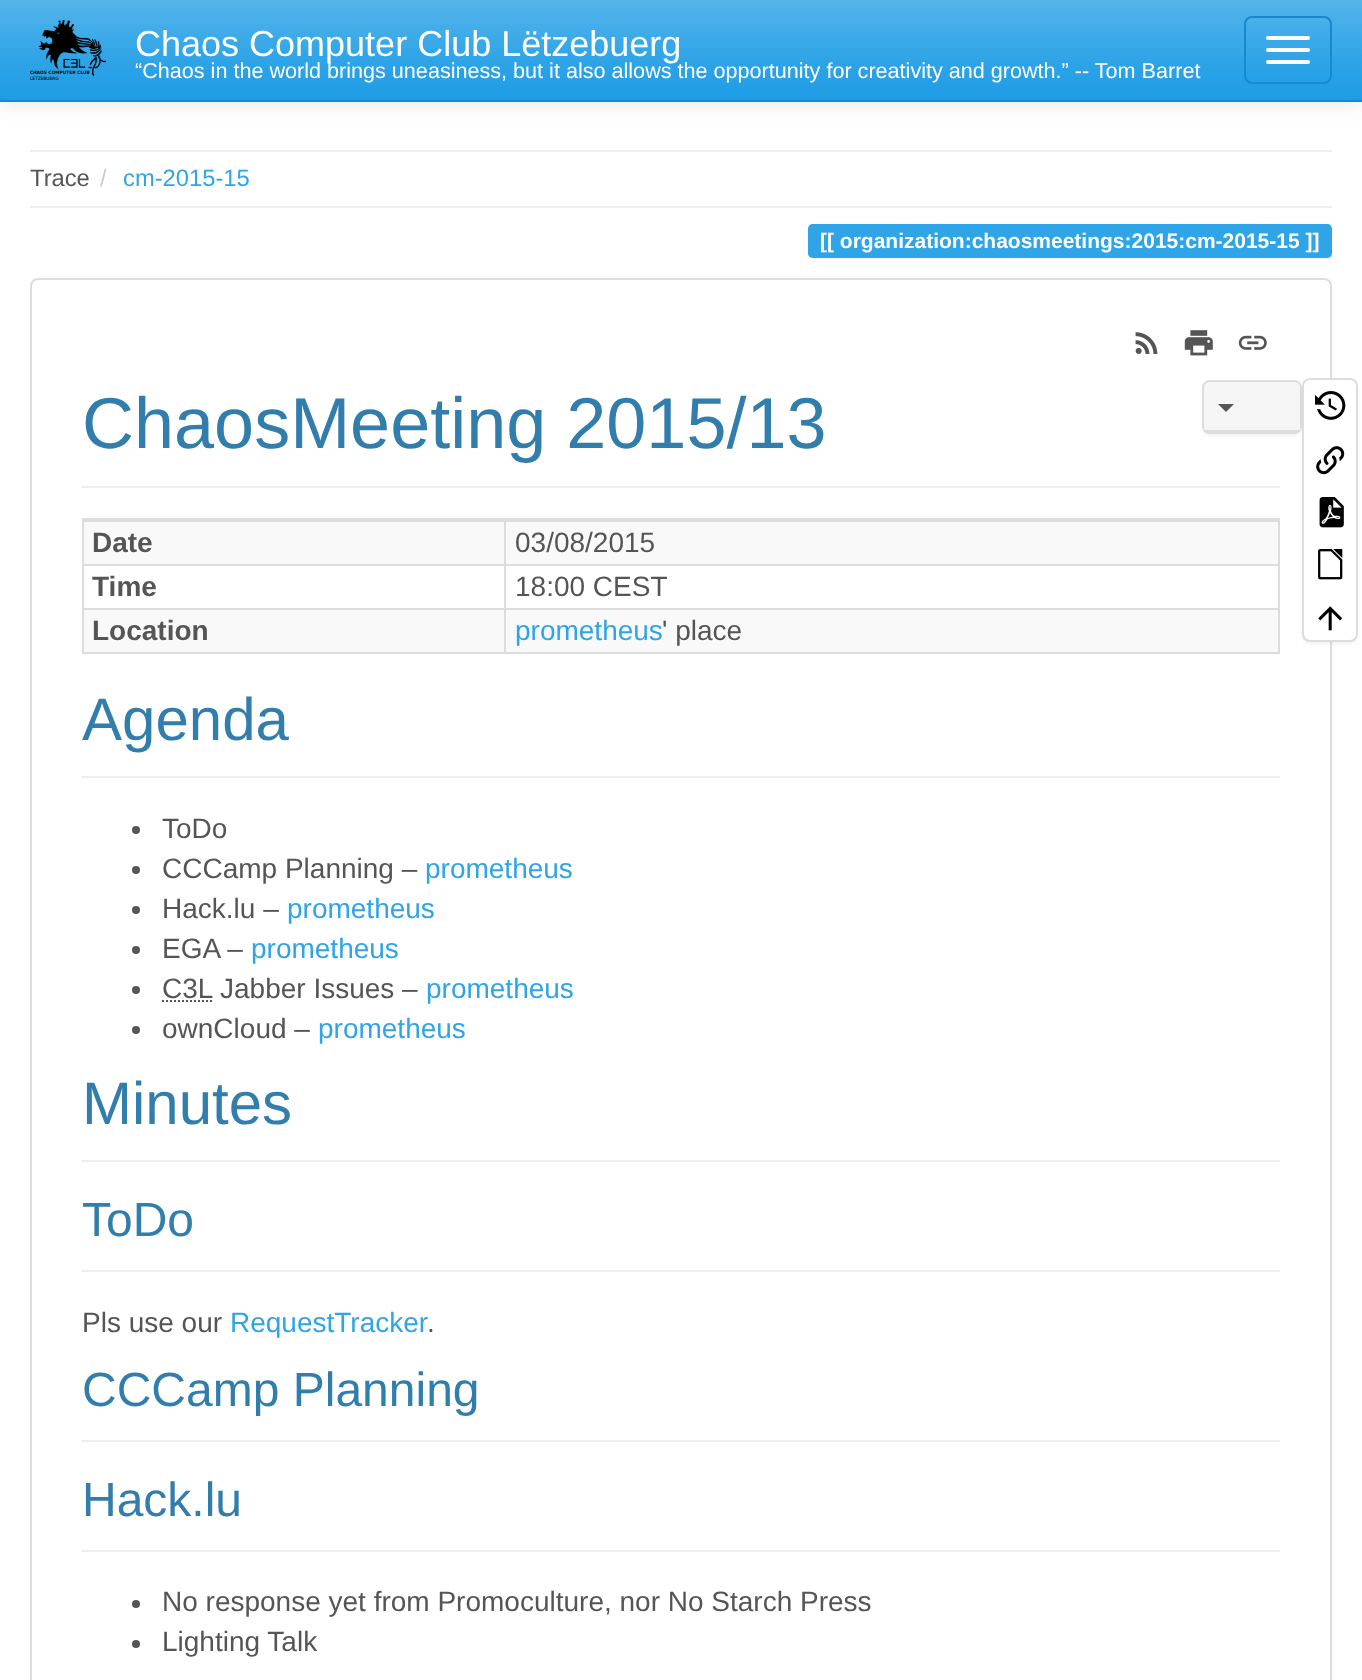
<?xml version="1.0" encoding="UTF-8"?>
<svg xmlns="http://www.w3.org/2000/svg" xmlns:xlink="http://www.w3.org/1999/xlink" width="1362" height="1680">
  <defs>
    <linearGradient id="g1" gradientUnits="userSpaceOnUse" x1="681" y1="0" x2="681" y2="100"><stop offset="0" stop-color="#54b4eb" /><stop offset="0.6" stop-color="#2fa4e7" /><stop offset="1" stop-color="#1d9ce5" /></linearGradient>
  </defs>
  <rect width="100%" height="100%" fill="#ffffff" />
  <rect y="2" width="1362" height="102" fill="#000000" fill-opacity="0.1" filter="blur(10px)" />
  <rect width="1362" height="100" fill="url(#g1)" />
  <rect y="100" width="1362" height="2" fill="#178acc" />
  <image x="30" y="20" width="76" height="60" xlink:href="image1.png" />
  <rect x="1245" y="17" width="86" height="66" rx="7" fill="none" stroke="#178acc" stroke-width="2" />
  <rect x="1266" y="36" width="44" height="4" rx="2" fill="#ffffff" />
  <rect x="1266" y="48" width="44" height="4" rx="2" fill="#ffffff" />
  <rect x="1266" y="60" width="44" height="4" rx="2" fill="#ffffff" />
  <rect x="30" y="150" width="1302" height="2" fill="#eeeeee" />
  <rect x="30" y="206" width="1302" height="2" fill="#eeeeee" />
  <path d="M 813 224 h 27 v 34 h -27 c -3 0 -5 -2 -5 -5 v -24 c 0 -3 2 -5 5 -5 z" fill="#2fa4e7" />
  <rect x="840" y="224" width="460" height="34" fill="#2fa4e7" />
  <path d="M 1300 224 h 27 c 3 0 5 2 5 5 v 24 c 0 3 -2 5 -5 5 h -27 z" fill="#2fa4e7" />
  <rect x="31" y="279" width="1300" height="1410" rx="7" fill="none" stroke="#dddddd" stroke-width="2" />
  <image x="1135" y="332" width="23" height="22" xlink:href="image2.png" />
  <image x="1184" y="330" width="29" height="26" xlink:href="image3.png" />
  <image x="1238" y="335" width="29" height="15" xlink:href="image4.png" />
  <rect x="82" y="486" width="1198" height="2" fill="#eeeeee" />
  <rect x="83" y="519" width="1196" height="134" fill="none" stroke="#dddddd" stroke-width="2" />
  <rect x="84" y="522" width="1194" height="42" fill="#f9f9f9" />
  <rect x="504" y="520" width="774" height="2" fill="#dddddd" />
  <rect x="504" y="564" width="774" height="2" fill="#dddddd" />
  <rect x="504" y="608" width="774" height="2" fill="#dddddd" />
  <rect x="84" y="610" width="1194" height="42" fill="#f9f9f9" />
  <rect x="504" y="608" width="2" height="44" fill="#dddddd" />
  <rect x="84" y="608" width="422" height="2" fill="#dddddd" />
  <rect x="504" y="564" width="2" height="46" fill="#dddddd" />
  <rect x="84" y="564" width="422" height="2" fill="#dddddd" />
  <rect x="504" y="520" width="2" height="46" fill="#dddddd" />
  <rect x="84" y="520" width="422" height="2" fill="#dddddd" />
  <rect x="82" y="776" width="1198" height="2" fill="#eeeeee" />
  <circle cx="136" cy="830" r="4" fill="#555555" />
  <circle cx="136" cy="870" r="4" fill="#555555" />
  <circle cx="136" cy="910" r="4" fill="#555555" />
  <circle cx="136" cy="950" r="4" fill="#555555" />
  <circle cx="136" cy="990" r="4" fill="#555555" />
  <path d="M 162 1001 h 50.5" fill="none" stroke="#555555" stroke-width="2" stroke-dasharray="2 2" />
  <circle cx="136" cy="1030" r="4" fill="#555555" />
  <rect x="82" y="1160" width="1198" height="2" fill="#eeeeee" />
  <rect x="82" y="1270" width="1198" height="2" fill="#eeeeee" />
  <rect x="82" y="1440" width="1198" height="2" fill="#eeeeee" />
  <rect x="82" y="1550" width="1198" height="2" fill="#eeeeee" />
  <circle cx="136" cy="1604" r="4" fill="#555555" />
  <circle cx="136" cy="1644" r="4" fill="#555555" />
  <rect x="1202" y="382" width="100" height="54" rx="8" fill="#000000" fill-opacity="0.05" filter="blur(1px)" />
  <rect x="1203" y="381" width="98" height="52" rx="7" fill="none" stroke="#dddddd" stroke-width="2" />
  <path d="M 1210 382 h 84 c 3.5 0 6 2.5 6 6 v 44 h -96 v -44 c 0 -3.5 2.5 -6 6 -6 z" fill="#f5f5f5" />
  <rect x="1204" y="430" width="96" height="2" fill="#dddddd" />
  <path d="M 1218 404 h 16 l -8 8 z" fill="#555555" />
  <rect x="1302" y="380" width="56" height="264" rx="8" fill="#000000" fill-opacity="0.05" filter="blur(1px)" />
  <rect x="1303" y="379" width="54" height="262" rx="7" fill="#ffffff" stroke="#dddddd" stroke-width="2" />
  <image x="1315" y="391" width="31" height="29" xlink:href="image5.png" />
  <image x="1316" y="446" width="29" height="29" xlink:href="image6.png" />
  <image x="1319" y="497" width="25" height="31" xlink:href="image7.png" />
  <image x="1318" y="549" width="25" height="31" xlink:href="image8.png" />
  <image x="1318" y="606" width="25" height="25" xlink:href="image9.png" />
  <text x="135" y="56" style="font-family: Liberation Sans; font-size: 36px; fill: #ffffff">Chaos Computer Club Lëtzebuerg</text>
  <text x="135" y="78" style="font-family: Liberation Sans; font-size: 21.6px; fill: #ffffff">“Chaos in the world brings uneasiness, but it also allows the opportunity for creativity and growth.” -- Tom Barret</text>
  <text x="30" y="186" style="font-family: Liberation Sans; font-size: 23.75px; fill: #555555">Trace</text>
  <text x="100" y="186" style="font-family: Liberation Sans; font-size: 23.75px; fill: #cccccc">/</text>
  <text x="123" y="186" style="font-family: Liberation Sans; font-size: 23.75px; fill: #2fa4e7">cm-2015-15</text>
  <text x="820" y="248" style="font-family: Liberation Sans; font-size: 21px; font-weight: bold; fill: #ffffff">[[ organization:chaosmeetings:2015:cm-2015-15 ]]</text>
  <text x="82" y="448" style="font-family: Liberation Sans; font-size: 72px; fill: #317eac">ChaosMeeting 2015/13</text>
  <text x="92" y="552" style="font-family: Liberation Sans; font-size: 28px; font-weight: bold; fill: #555555">Date</text>
  <text x="515" y="552" style="font-family: Liberation Sans; font-size: 28px; fill: #555555">03/08/2015</text>
  <text x="92" y="596" style="font-family: Liberation Sans; font-size: 28px; font-weight: bold; fill: #555555">Time</text>
  <text x="515" y="596" style="font-family: Liberation Sans; font-size: 28px; fill: #555555">18:00 CEST</text>
  <text x="92" y="640" style="font-family: Liberation Sans; font-size: 28px; font-weight: bold; fill: #555555">Location</text>
  <text x="515" y="640" style="font-family: Liberation Sans; font-size: 28px; fill: #2fa4e7">prometheus</text>
  <text x="662" y="640" style="font-family: Liberation Sans; font-size: 28px; fill: #555555">' place</text>
  <text x="82" y="740" style="font-family: Liberation Sans; font-size: 60px; fill: #317eac">Agenda</text>
  <text x="162" y="838" style="font-family: Liberation Sans; font-size: 28px; fill: #555555">ToDo</text>
  <text x="162" y="878" style="font-family: Liberation Sans; font-size: 28px; fill: #555555">CCCamp Planning –</text>
  <text x="425" y="878" style="font-family: Liberation Sans; font-size: 28px; fill: #2fa4e7">prometheus</text>
  <text x="162" y="918" style="font-family: Liberation Sans; font-size: 28px; fill: #555555">Hack.lu –</text>
  <text x="287" y="918" style="font-family: Liberation Sans; font-size: 28px; fill: #2fa4e7">prometheus</text>
  <text x="162" y="958" style="font-family: Liberation Sans; font-size: 28px; fill: #555555">EGA –</text>
  <text x="251" y="958" style="font-family: Liberation Sans; font-size: 28px; fill: #2fa4e7">prometheus</text>
  <text x="162" y="998" style="font-family: Liberation Sans; font-size: 28px; fill: #555555">C3L</text>
  <text x="220" y="998" style="font-family: Liberation Sans; font-size: 28px; fill: #555555">Jabber Issues –</text>
  <text x="426" y="998" style="font-family: Liberation Sans; font-size: 28px; fill: #2fa4e7">prometheus</text>
  <text x="162" y="1038" style="font-family: Liberation Sans; font-size: 28px; fill: #555555">ownCloud –</text>
  <text x="318" y="1038" style="font-family: Liberation Sans; font-size: 28px; fill: #2fa4e7">prometheus</text>
  <text x="82" y="1124" style="font-family: Liberation Sans; font-size: 60px; fill: #317eac">Minutes</text>
  <text x="82" y="1236" style="font-family: Liberation Sans; font-size: 48px; fill: #317eac">ToDo</text>
  <text x="82" y="1332" style="font-family: Liberation Sans; font-size: 28px; fill: #555555">Pls use our</text>
  <text x="230" y="1332" style="font-family: Liberation Sans; font-size: 28px; fill: #2fa4e7">RequestTracker</text>
  <text x="427" y="1332" style="font-family: Liberation Sans; font-size: 28px; fill: #555555">.</text>
  <text x="82" y="1406" style="font-family: Liberation Sans; font-size: 48px; fill: #317eac">CCCamp Planning</text>
  <text x="82" y="1516" style="font-family: Liberation Sans; font-size: 48px; fill: #317eac">Hack.lu</text>
  <text x="162" y="1611" style="font-family: Liberation Sans; font-size: 28px; fill: #555555">No response yet from Promoculture, nor No Starch Press</text>
  <text x="162" y="1651" style="font-family: Liberation Sans; font-size: 28px; fill: #555555">Lighting Talk</text>
</svg>
